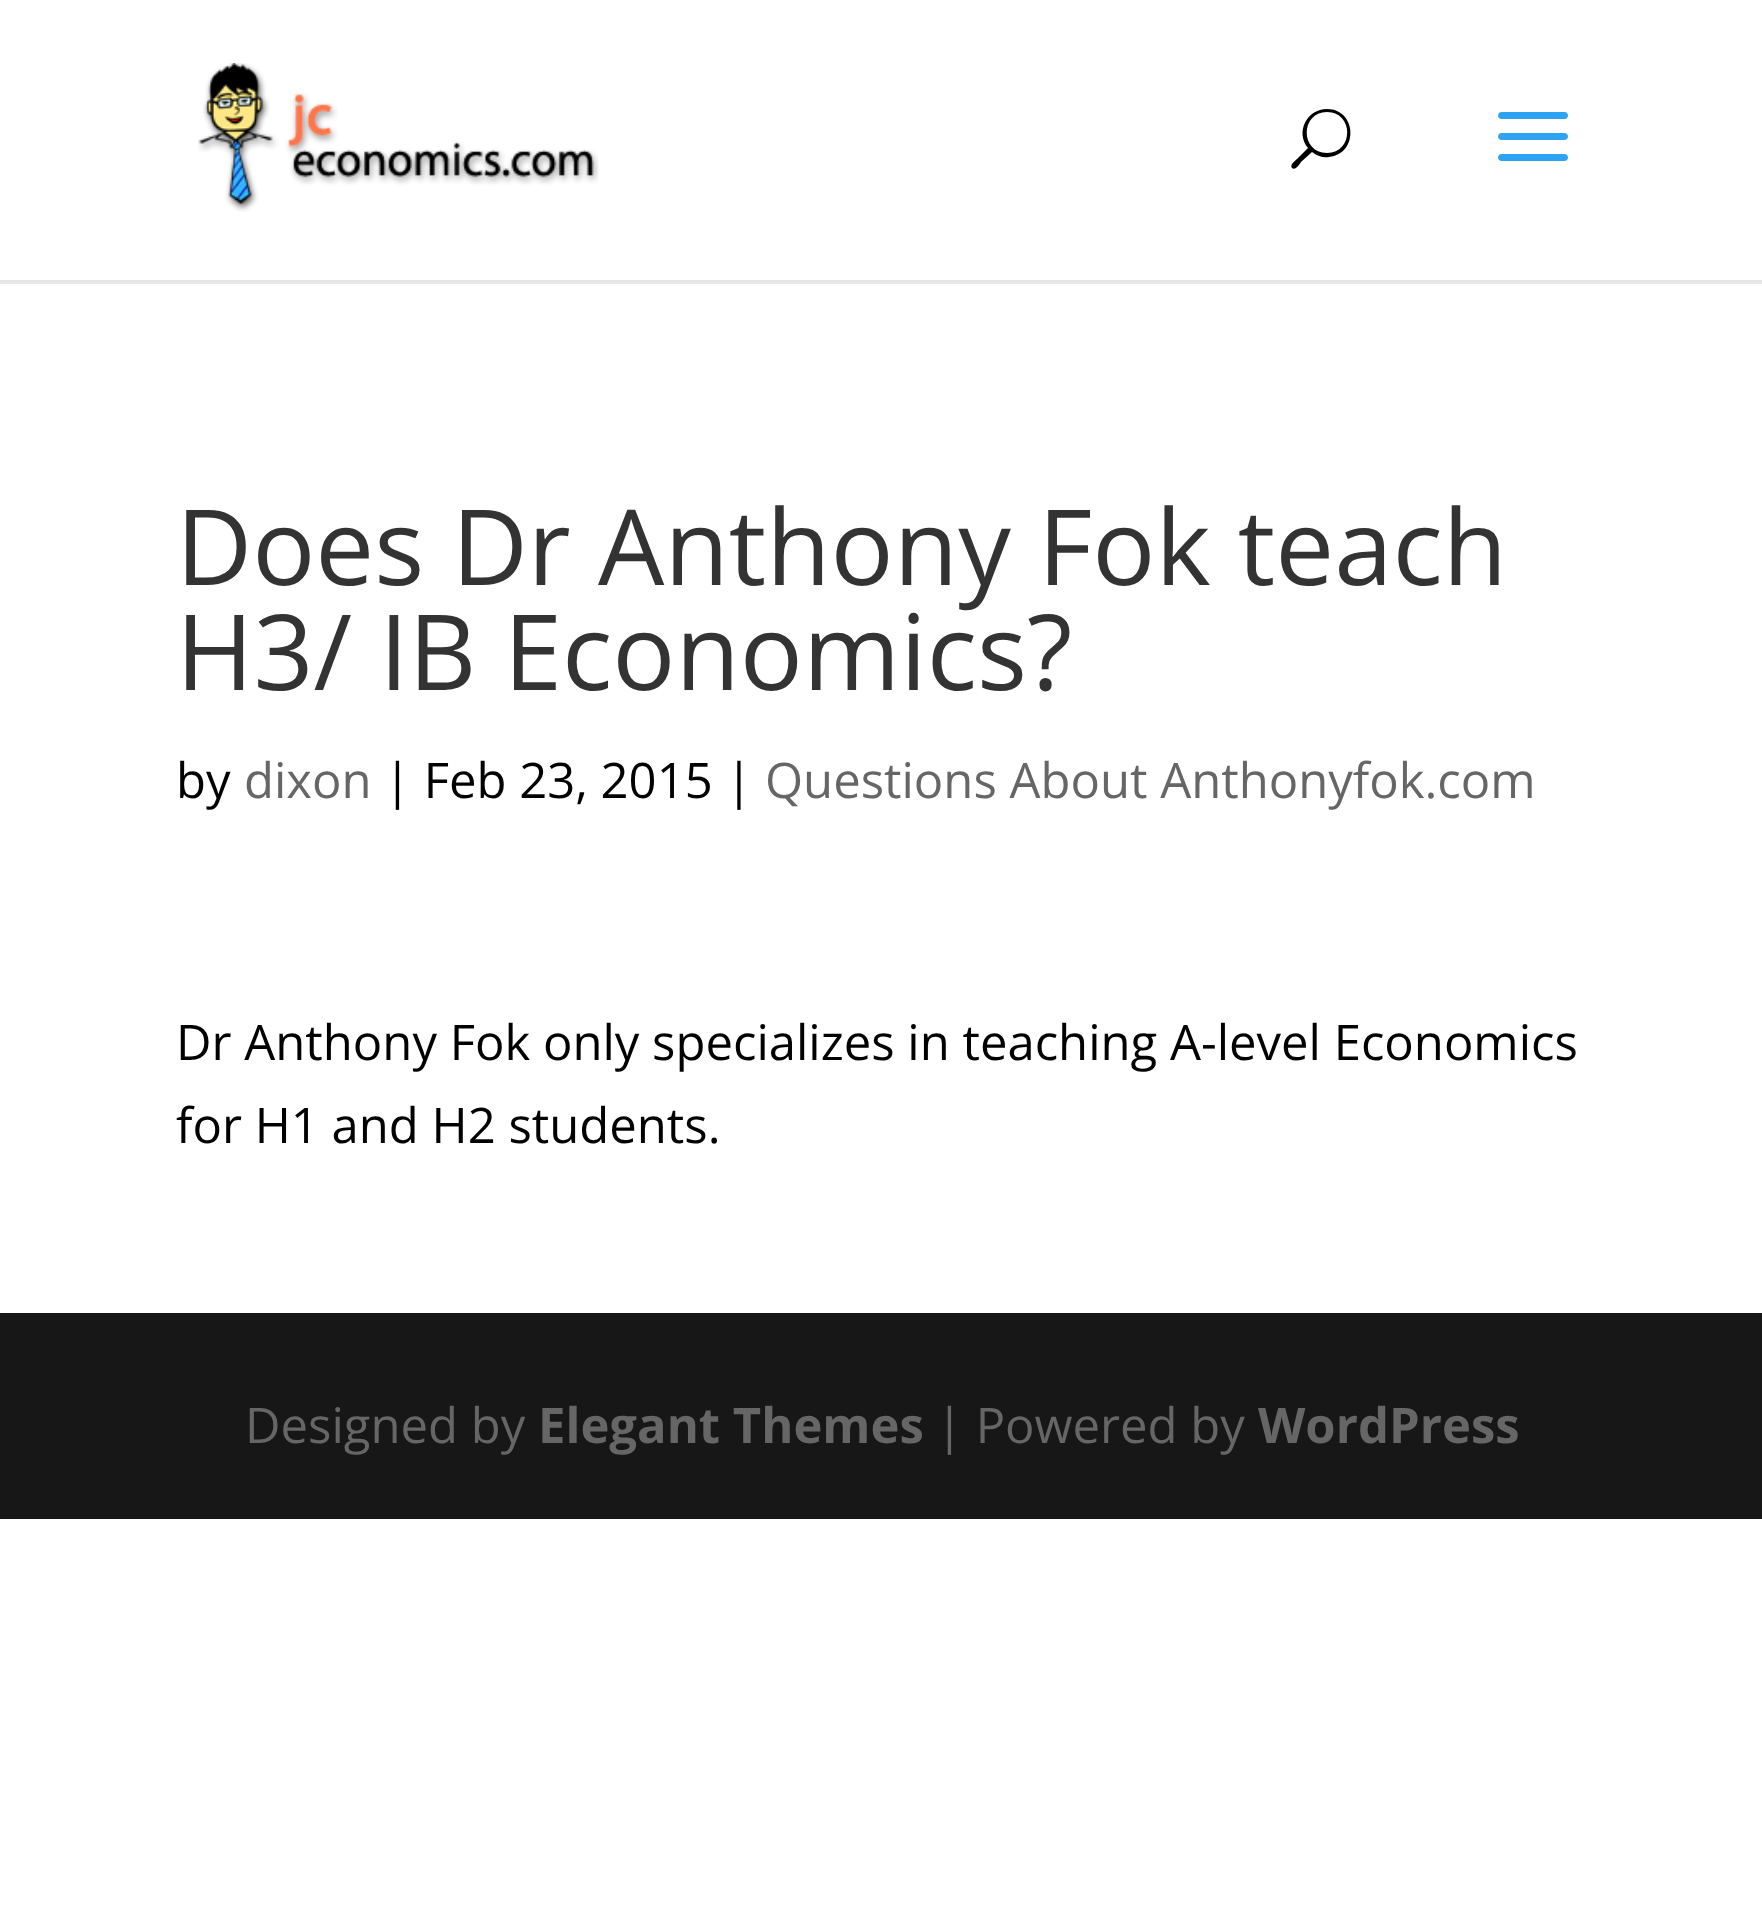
<?xml version="1.0" encoding="UTF-8"?>
<svg xmlns="http://www.w3.org/2000/svg" xmlns:xlink="http://www.w3.org/1999/xlink" width="1762" height="1920">
  <rect width="100%" height="100%" fill="#ffffff" />
  <rect y="280" width="1762" height="4" fill="#e6e6e6" />
  <image x="198" y="63" width="401" height="149" xlink:href="image1.png" />
  <path d="M 1327 109 c -20 0 -32 23 -19 39 l -11 11 c -1 1 -8 6 -5 9 c 3 3 8 -4 9 -6 l 11 -10 c 5 4 11 6 17 5 c 30 -3 28 -48 -2 -48 z m 0 44 c -27 0 -27 -41 0 -41 c 27 0 27 41 0 41 z" fill="#000000" />
  <image x="1498" y="112" width="70" height="49" xlink:href="image2.png" />
  <rect y="1313" width="1762" height="206" fill="#171717" />
  <text x="176" y="585" style="font-family: Open Sans; font-size: 105px; fill: #333333">Does Dr Anthony Fok teach</text>
  <text x="176" y="690" style="font-family: Open Sans; font-size: 105px; fill: #333333">H3/ IB Economics?</text>
  <text x="176" y="798" style="font-family: Open Sans; font-size: 49px; fill: #000000">by</text>
  <text x="244" y="798" style="font-family: Open Sans; font-size: 49px; fill: #666666">dixon</text>
  <text x="384" y="798" style="font-family: Open Sans; font-size: 49px; fill: #000000">| Feb 23, 2015 |</text>
  <text x="765" y="798" style="font-family: Open Sans; font-size: 49px; fill: #666666">Questions About Anthonyfok.com</text>
  <text x="176" y="1060" style="font-family: Open Sans; font-size: 49px; fill: #000000">Dr Anthony Fok only specializes in teaching A-level Economics</text>
  <text x="176" y="1143" style="font-family: Open Sans; font-size: 49px; fill: #000000">for H1 and H2 students.</text>
  <text x="245" y="1443" style="font-family: Open Sans; font-size: 49px; fill: #666666">Designed by</text>
  <text x="538" y="1443" style="font-family: Open Sans; font-size: 49px; font-weight: bold; fill: #666666">Elegant Themes</text>
  <text x="936" y="1443" style="font-family: Open Sans; font-size: 49px; fill: #666666">| Powered by</text>
  <text x="1258" y="1443" style="font-family: Open Sans; font-size: 49px; font-weight: bold; fill: #666666">WordPress</text>
</svg>
